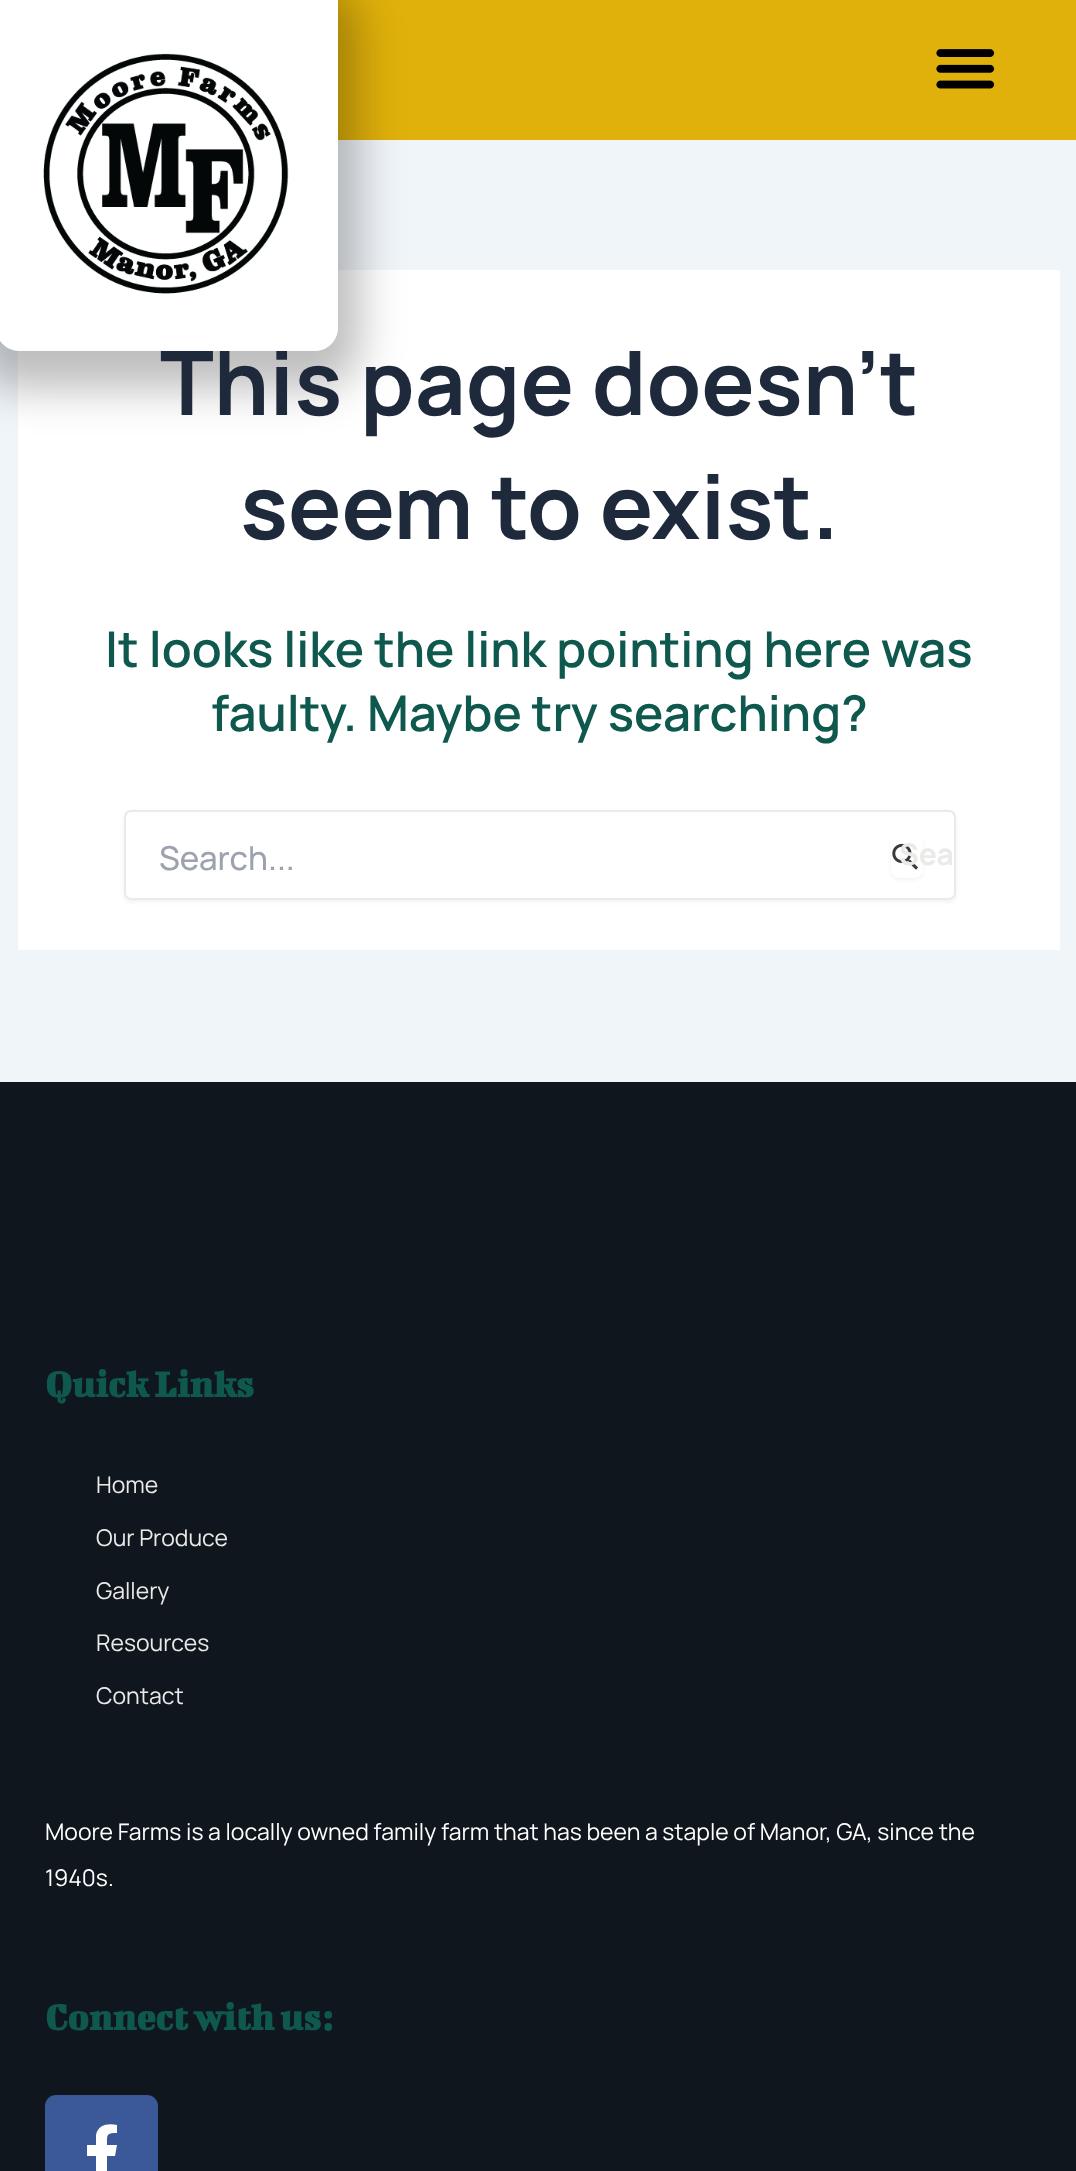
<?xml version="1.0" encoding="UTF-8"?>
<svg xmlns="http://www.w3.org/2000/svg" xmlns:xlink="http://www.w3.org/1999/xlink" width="1076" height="2171">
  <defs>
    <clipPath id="clip1"><path d="M 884 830 h 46 v 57 h -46 z m 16 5 h 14 c 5 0 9 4 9 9 v 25 c 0 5 -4 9 -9 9 h -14 c -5 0 -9 -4 -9 -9 v -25 c 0 -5 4 -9 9 -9 z" clip-rule="evenodd" /></clipPath>
  </defs>
  <rect width="100%" height="100%" fill="#f0f5fa" />
  <rect x="338" width="738" height="140" fill="#e0b10b" />
  <rect x="18" y="270" width="1042" height="680" fill="#ffffff" />
  <rect x="-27" y="-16" width="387" height="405" rx="45" fill="#000000" fill-opacity="0.26" filter="blur(21.5px)" />
  <image x="936" y="49" width="59" height="40" xlink:href="image2.png" />
  <rect x="124" y="812" width="832" height="90" rx="7" fill="#000000" fill-opacity="0.05" filter="blur(2px)" />
  <rect x="125" y="811" width="830" height="88" rx="6" fill="#ffffff" stroke="#eaeae8" stroke-width="2" />
  <g clip-path="url(#clip1)">
    <rect x="891" y="837" width="32" height="43" rx="9" fill="#000000" fill-opacity="0.05" filter="blur(2px)" />
  </g>
  <image x="892" y="843" width="26" height="27" xlink:href="image3.png" />
  <rect y="1082" width="1076" height="1089" fill="#0f161e" />
  <rect x="45" y="2095" width="113" height="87" rx="11" fill="#3b5998" />
  <path d="M 115 2156 l 2 -11 h -10 c 0 -10 -1 -12 10 -12 v -8 c -8 -2 -19 -1 -21 10 v 10 h -9 v 11 h 9 v 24 h 11 v -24 z" fill="#ffffff" />
  <text x="160" y="415" style="font-family: Manrope; font-size: 88.75px; font-weight: bold; fill: #1e293b">This page doesn't</text>
  <path d="M -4 -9 h 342 v 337 c 0 12.5 -10.5 23 -23 23 h -296 c -12.5 0 -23 -10.5 -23 -23 z" fill="#ffffff" />
  <image x="43" y="53" width="246" height="241" xlink:href="image1.png" />
  <text x="240" y="539" style="font-family: Manrope; font-size: 88.75px; font-weight: bold; fill: #1e293b">seem to exist.</text>
  <text x="105" y="667" style="font-family: Manrope; font-size: 49.25px; font-weight: 600; fill: #0e584d">It looks like the link pointing here was</text>
  <text x="211" y="731" style="font-family: Manrope; font-size: 49.25px; font-weight: 600; fill: #0e584d">faulty. Maybe try searching?</text>
  <text x="159" y="870" style="font-family: Manrope; font-size: 33px; font-weight: 500; fill: #9ca3af">Search...</text>
  <text x="899" y="865" style="font-family: Manrope; font-size: 30px; font-weight: bold; fill: #eaeae8">Sea</text>
  <text x="45" y="1397" style="font-family: Bigshot One; font-size: 39.5px; font-weight: bold; fill: #0e584d">Quick Links</text>
  <text x="96" y="1493" style="font-family: Manrope; font-size: 23px; fill: #eaeae8">Home</text>
  <text x="96" y="1546" style="font-family: Manrope; font-size: 23px; fill: #eaeae8">Our Produce</text>
  <text x="96" y="1599" style="font-family: Manrope; font-size: 23px; fill: #eaeae8">Gallery</text>
  <text x="96" y="1651" style="font-family: Manrope; font-size: 23px; fill: #eaeae8">Resources</text>
  <text x="96" y="1704" style="font-family: Manrope; font-size: 23px; fill: #eaeae8">Contact</text>
  <text x="45" y="1840" style="font-family: Manrope; font-size: 23px; fill: #ffffff">Moore Farms is a locally owned family farm that has been a staple of Manor, GA, since the</text>
  <text x="45" y="1886" style="font-family: Manrope; font-size: 23px; fill: #ffffff">1940s.</text>
  <text x="45" y="2030" style="font-family: Bigshot One; font-size: 39.5px; font-weight: bold; fill: #0e584d">Connect with us:</text>
</svg>
